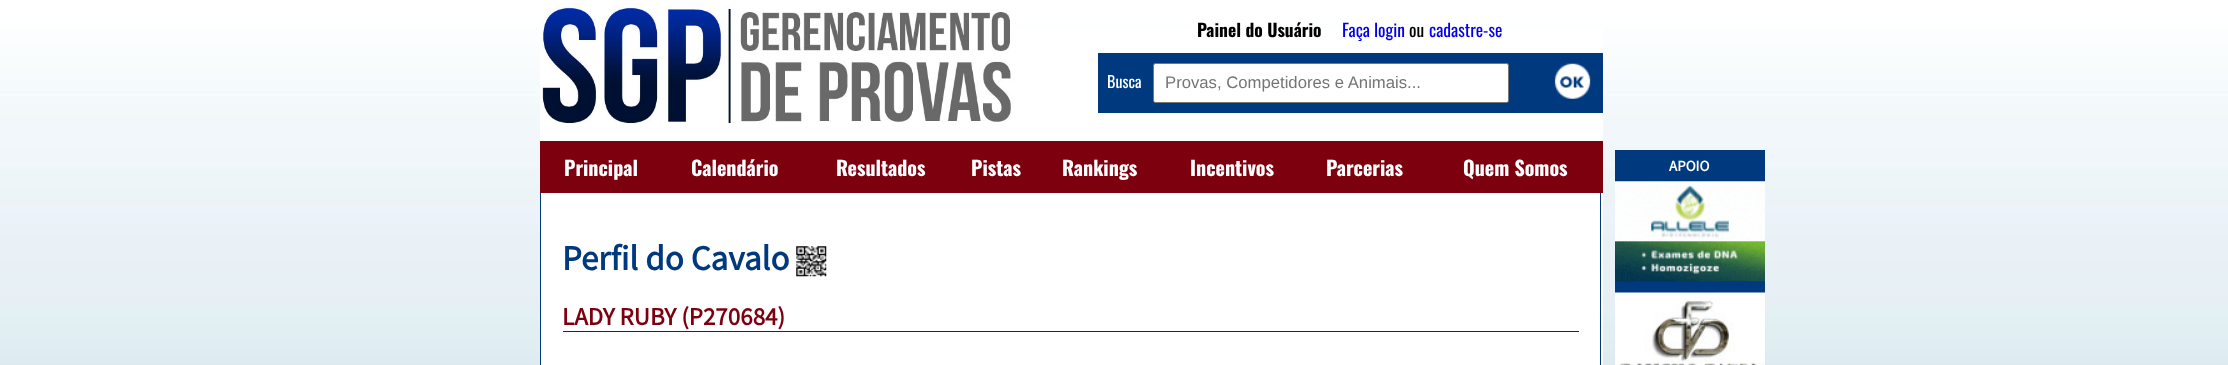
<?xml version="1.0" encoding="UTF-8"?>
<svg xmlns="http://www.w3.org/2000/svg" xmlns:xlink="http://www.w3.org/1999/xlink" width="2228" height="365">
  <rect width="100%" height="100%" fill="#ffffff" />
  <image x="0" y="0" width="2228" height="365" xlink:href="image1.png" />
  <rect x="540" y="28" width="1063" height="337" fill="#ffffff" />
  <image x="540" y="5" width="475" height="122" xlink:href="image2.png" />
  <rect x="1098" y="53" width="505" height="60" fill="#00397d" />
  <rect x="1153.5" y="63.5" width="355" height="39" rx="2" fill="#ffffff" stroke="#767676" />
  <image x="1554" y="63" width="37" height="36" xlink:href="image3.png" />
  <rect x="540" y="141" width="1063" height="52" fill="#7d000e" />
  <rect x="1600" y="193" width="1" height="172" fill="#00397d" />
  <rect x="540" y="193" width="1" height="172" fill="#00397d" />
  <image x="796" y="246" width="31" height="31" xlink:href="image4.png" />
  <rect x="563" y="331" width="1016" height="1" fill="#7d000e" />
  <rect x="1615" y="150" width="150" height="143" fill="#00397d" />
  <image x="1615" y="181" width="150" height="101" xlink:href="image5.png" />
  <image x="1615" y="292" width="150" height="73" xlink:href="image6.png" />
  <text x="1197" y="37" style="font-family: Oswald; font-size: 17.5px; font-weight: bold; fill: #000000">Painel do Usuário</text>
  <text x="1342" y="37" style="font-family: Oswald; font-size: 17.5px; fill: #0000ee">Faça login</text>
  <text x="1409" y="37" style="font-family: Oswald; font-size: 17.5px; fill: #000000">ou</text>
  <text x="1429" y="37" style="font-family: Oswald; font-size: 17.5px; fill: #0000ee">cadastre-se</text>
  <text x="1107" y="88" style="font-family: Oswald; font-size: 16px; fill: #ffffff">Busca</text>
  <text x="1165" y="88" style="font-family: Liberation Sans; font-size: 16.7px; fill: #757575">Provas, Competidores e Animais...</text>
  <text x="564" y="176" style="font-family: Oswald; font-size: 20px; font-weight: bold; fill: #ffffff">Principal</text>
  <text x="691" y="176" style="font-family: Oswald; font-size: 20px; font-weight: bold; fill: #ffffff">Calendário</text>
  <text x="836" y="176" style="font-family: Oswald; font-size: 20px; font-weight: bold; fill: #ffffff">Resultados</text>
  <text x="971" y="176" style="font-family: Oswald; font-size: 20px; font-weight: bold; fill: #ffffff">Pistas</text>
  <text x="1062" y="176" style="font-family: Oswald; font-size: 20px; font-weight: bold; fill: #ffffff">Rankings</text>
  <text x="1190" y="176" style="font-family: Oswald; font-size: 20px; font-weight: bold; fill: #ffffff">Incentivos</text>
  <text x="1326" y="176" style="font-family: Oswald; font-size: 20px; font-weight: bold; fill: #ffffff">Parcerias</text>
  <text x="1463" y="176" style="font-family: Oswald; font-size: 20px; font-weight: bold; fill: #ffffff">Quem Somos</text>
  <text x="562" y="270" style="font-family: Source Sans Pro; font-size: 35px; font-weight: bold; fill: #00397d">Perfil do Cavalo</text>
  <text x="562" y="325" style="font-family: Source Sans Pro; font-size: 25px; font-weight: bold; fill: #7d000e">LADY RUBY (P270684)</text>
  <text x="1669" y="171" style="font-family: Source Sans Pro; font-size: 15px; font-weight: bold; fill: #ffffff">APOIO</text>
</svg>
